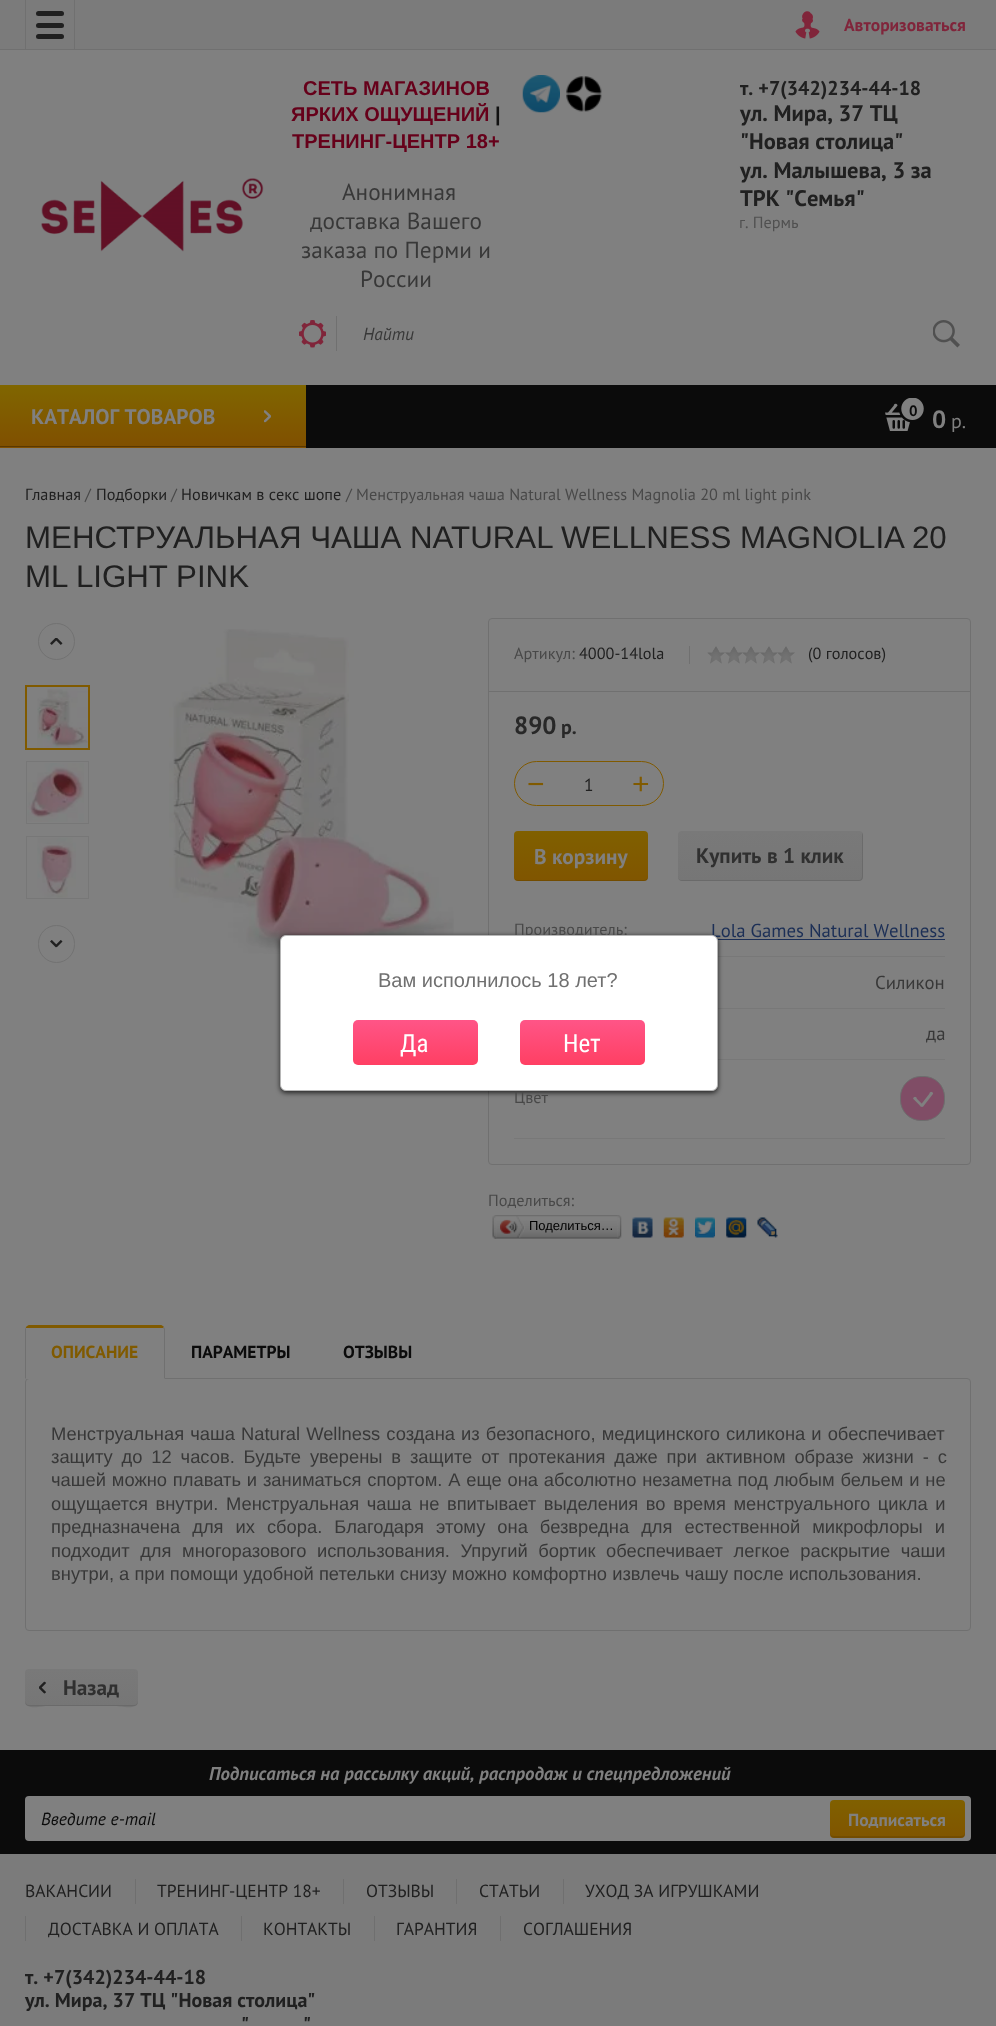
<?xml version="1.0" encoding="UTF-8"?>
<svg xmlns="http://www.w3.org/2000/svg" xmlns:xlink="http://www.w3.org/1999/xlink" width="996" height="2026">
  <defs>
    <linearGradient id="g1" gradientUnits="userSpaceOnUse" x1="153" y1="448" x2="153" y2="385"><stop offset="0" stop-color="#804f00" /><stop offset="1" stop-color="#806600" /></linearGradient>
    <linearGradient id="g2" gradientUnits="userSpaceOnUse" x1="581" y1="881" x2="581" y2="831"><stop offset="0" stop-color="#805500" /><stop offset="1" stop-color="#806000" /></linearGradient>
    <linearGradient id="g3" gradientUnits="userSpaceOnUse" x1="770" y1="881" x2="770" y2="831"><stop offset="0" stop-color="#767676" /><stop offset="1" stop-color="#797979" /></linearGradient>
    <linearGradient id="g4" gradientUnits="userSpaceOnUse" x1="81" y1="1706" x2="81" y2="1669"><stop offset="0" stop-color="#767676" /><stop offset="1" stop-color="#797979" /></linearGradient>
    <linearGradient id="g5" gradientUnits="userSpaceOnUse" x1="898" y1="1838" x2="898" y2="1800"><stop offset="0" stop-color="#805500" /><stop offset="1" stop-color="#806000" /></linearGradient>
    <linearGradient id="g6" gradientUnits="userSpaceOnUse" x1="415" y1="1065" x2="415" y2="1020"><stop offset="0" stop-color="#ff3f63" /><stop offset="1" stop-color="#ff5587" /></linearGradient>
    <linearGradient id="g7" gradientUnits="userSpaceOnUse" x1="583" y1="1065" x2="583" y2="1020"><stop offset="0" stop-color="#ff3f63" /><stop offset="1" stop-color="#ff5587" /></linearGradient>
  </defs>
  <rect width="100%" height="100%" fill="#808080" />
  <rect width="996" height="49" fill="#7b7b7b" />
  <rect y="49" width="996" height="1" fill="#707070" />
  <rect x="74" width="1" height="50" fill="#707070" />
  <rect x="25" width="1" height="50" fill="#707070" />
  <rect x="36" y="11" width="28" height="5" rx="2.5" fill="#202020" />
  <rect x="36" y="23" width="28" height="5" rx="2.5" fill="#202020" />
  <rect x="36" y="34" width="28" height="5" rx="2.5" fill="#202020" />
  <image x="795" y="11" width="25" height="28" xlink:href="image1.png" />
  <image x="41" y="178" width="223" height="74" xlink:href="image2.png" />
  <image x="522" y="75" width="38" height="38" xlink:href="image3.png" />
  <image x="566" y="76" width="36" height="36" xlink:href="image4.png" />
  <image x="299" y="320" width="27" height="28" xlink:href="image5.png" />
  <rect x="336" y="316" width="1" height="35" fill="#707070" />
  <image x="933" y="320" width="27" height="28" xlink:href="image6.png" />
  <rect x="306" y="385" width="690" height="63" fill="#0b0b0b" />
  <rect y="385" width="306" height="63" fill="url(#g1)" />
  <rect y="446" width="306" height="1" fill="#5a3800" />
  <image x="264" y="410" width="7" height="13" xlink:href="image7.png" />
  <image x="885" y="398" width="39" height="33" xlink:href="image8.png" />
  <circle cx="56.5" cy="641.5" r="18" fill="none" stroke="#727272" />
  <image x="50" y="638" width="13" height="7" xlink:href="image9.png" />
  <rect x="38.5" y="925.5" width="36" height="37" rx="18" fill="none" stroke="#727272" />
  <image x="50" y="940" width="13" height="8" xlink:href="image10.png" />
  <rect x="26.5" y="686.5" width="62" height="62" fill="none" stroke="#805a00" />
  <image x="37" y="689" width="51" height="59" xlink:href="image11.png" />
  <rect x="25.5" y="685.5" width="64" height="64" fill="none" stroke="#805a00" />
  <rect x="26.5" y="761.5" width="62" height="62" fill="none" stroke="#777777" />
  <image x="27" y="763" width="57" height="59" xlink:href="image12.png" />
  <rect x="26.5" y="836.5" width="62" height="62" fill="none" stroke="#777777" />
  <image x="37" y="837" width="39" height="61" xlink:href="image13.png" />
  <image x="169" y="629" width="285" height="325" xlink:href="image14.png" />
  <rect x="488.5" y="618.5" width="482" height="546" rx="3.5" fill="none" stroke="#707070" />
  <rect x="489" y="691" width="481" height="1" fill="#707070" />
  <rect x="689" y="646" width="1" height="18" fill="#707070" />
  <image x="707" y="646" width="88" height="18" xlink:href="image15.png" />
  <rect x="514.5" y="761.5" width="149" height="44" rx="22" fill="none" stroke="#805a00" />
  <rect x="514" y="831" width="134" height="50" rx="4" fill="url(#g2)" />
  <path d="M 514 876 v 1 c 0 2 2 4 4 4 h 126 c 2 0 4 -2 4 -4 v -1 c 0 2 -2 4 -4 4 h -126 c -3 0 -4 -2 -4 -4 z" fill="#000000" fill-opacity="0.1" />
  <rect x="678" y="831" width="185" height="50" rx="4" fill="url(#g3)" />
  <path d="M 678 876 v 1 c 0 2 2 4 4 4 h 177 c 2 0 4 -2 4 -4 v -42 c 0 -1 -1 -2 -1 -3 v 44 c 0 2 -1 4 -3 4 h -178 c -2 0 -3 -2 -3 -4 z" fill="#000000" fill-opacity="0.1" />
  <rect x="718" y="956" width="227" height="1" fill="#787878" />
  <rect x="711" y="939" width="234" height="1" fill="#1c2f56" />
  <rect x="718" y="1008" width="227" height="1" fill="#787878" />
  <rect x="718" y="1059" width="227" height="1" fill="#787878" />
  <rect x="514" y="1138" width="431" height="1" fill="#787878" />
  <rect x="900.5" y="1076.5" width="44" height="44" rx="20.5" fill="#804d66" stroke="#6d6d6d" />
  <image x="913" y="1091" width="21" height="16" xlink:href="image16.png" />
  <image x="496" y="1215" width="122" height="24" xlink:href="image17.png" />
  <image x="492" y="1215" width="5" height="24" xlink:href="image18.png" />
  <image x="500" y="1216" width="25" height="22" xlink:href="image19.png" />
  <image x="617" y="1215" width="5" height="24" xlink:href="image20.png" />
  <image x="632" y="1217" width="21" height="21" xlink:href="image21.png" />
  <image x="663" y="1217" width="21" height="21" xlink:href="image22.png" />
  <image x="695" y="1217" width="20" height="21" xlink:href="image23.png" />
  <image x="726" y="1217" width="21" height="21" xlink:href="image24.png" />
  <image x="757" y="1217" width="21" height="21" xlink:href="image25.png" />
  <path d="M 29 1325 c -1 0 -2 1 -3 2 v 1 h 137 l 1 -1 c -1 -1 -2 -2 -3 -2 z" fill="#805a00" />
  <rect x="25.5" y="1378.5" width="945" height="252" rx="3.5" fill="none" stroke="#707070" />
  <path d="M 165 1379 v -50 l -1 -2 l -1 1 l 1 1 v 49 z" fill="#707070" />
  <path d="M 165 1379 h -140 l 1 -1 h 138 z" fill="#808080" />
  <path d="M 25 1379 l 1 -1 v -50 v -1 l -1 2 z" fill="#707070" />
  <rect x="25" y="1669" width="113" height="37" rx="4" fill="url(#g4)" />
  <path d="M 25 1701 c 0 10 18 5 21 5 h 70 c 4 0 22 5 22 -5 c 0 2 -2 4 -4 4 h -105 c -2 0 -4 -2 -4 -4 z" fill="#000000" fill-opacity="0.1" />
  <image x="39" y="1681" width="7" height="13" xlink:href="image26.png" />
  <rect y="1854" width="996" height="172" fill="#7b7b7b" />
  <rect y="1750" width="996" height="104" fill="#0b0b0b" />
  <rect x="25" y="1796" width="946" height="45" rx="4" fill="#808080" />
  <rect x="830" y="1800" width="135" height="38" rx="4" fill="url(#g5)" />
  <path d="M 830 1832 v 2 c 0 2 2 4 4 4 h 127 c 2 0 4 -2 4 -4 v -2 c 0 3 -2 4 -4 4 h -127 c -2 0 -4 -1 -4 -4 z" fill="#000000" fill-opacity="0.1" />
  <rect x="135" y="1879" width="1" height="25" fill="#6f6f6f" />
  <rect x="343" y="1879" width="1" height="25" fill="#6f6f6f" />
  <rect x="456" y="1879" width="1" height="25" fill="#6f6f6f" />
  <rect x="563" y="1879" width="1" height="25" fill="#6f6f6f" />
  <rect x="25" y="1916" width="1" height="25" fill="#6f6f6f" />
  <rect x="241" y="1916" width="1" height="25" fill="#6f6f6f" />
  <rect x="374" y="1916" width="1" height="25" fill="#6f6f6f" />
  <rect x="500" y="1916" width="1" height="25" fill="#6f6f6f" />
  <rect x="280" y="936" width="438" height="157" rx="6" fill="#000000" fill-opacity="0.7" filter="blur(2.5px)" />
  <text x="844" y="31" style="font-family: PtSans; font-size: 17.5px; font-weight: bold; fill: #80253b">Авторизоваться</text>
  <text x="303" y="95" style="font-family: Liberation Sans; font-size: 20px; font-weight: bold; fill: #66001a">СЕТЬ МАГАЗИНОВ</text>
  <text x="291" y="121" style="font-family: Liberation Sans; font-size: 20px; font-weight: bold; fill: #66001a">ЯРКИХ ОЩУЩЕНИЙ</text>
  <text x="495" y="121" style="font-family: Liberation Sans; font-size: 20px; font-weight: bold; fill: #111111">|</text>
  <text x="292" y="148" style="font-family: Liberation Sans; font-size: 20px; font-weight: bold; fill: #66001a">ТРЕНИНГ-ЦЕНТР 18+</text>
  <text x="342" y="200" style="font-family: PtSans; font-size: 23.25px; fill: #383838">Анонимная</text>
  <text x="310" y="229" style="font-family: PtSans; font-size: 23.25px; fill: #383838">доставка Вашего</text>
  <text x="301" y="258" style="font-family: PtSans; font-size: 23.25px; fill: #383838">заказа по Перми и</text>
  <text x="360" y="287" style="font-family: PtSans; font-size: 23.25px; fill: #383838">России</text>
  <text x="740" y="95" style="font-family: PtSans; font-size: 20px; font-weight: bold; fill: #202020">т. +7(342)234-44-18</text>
  <text x="740" y="121" style="font-family: PtSans; font-size: 22.5px; font-weight: bold; fill: #202020">ул. Мира, 37 ТЦ</text>
  <text x="740" y="149" style="font-family: PtSans; font-size: 22.5px; font-weight: bold; fill: #202020">"Новая столица"</text>
  <text x="740" y="178" style="font-family: PtSans; font-size: 22.5px; font-weight: bold; fill: #202020">ул. Малышева, 3 за</text>
  <text x="740" y="206" style="font-family: PtSans; font-size: 22.5px; font-weight: bold; fill: #202020">ТРК "Семья"</text>
  <text x="739" y="228" style="font-family: PtSans; font-size: 16.25px; fill: #505050">г. Пермь</text>
  <text x="363" y="340" style="font-family: PtSans; font-size: 17.5px; font-style: italic; fill: #383838">Найти</text>
  <text x="31" y="424" style="font-family: PtSans; font-size: 21.25px; font-weight: bold; fill: #808080">КАТАЛОГ ТОВАРОВ</text>
  <text x="909" y="416" style="font-family: PtSans; font-size: 15px; font-weight: bold; fill: #0b0b0b">0</text>
  <text x="932" y="428" style="font-family: PtSans; font-size: 25px; font-weight: bold; fill: #808080">0</text>
  <text x="951" y="428" style="font-family: PtSans; font-size: 20px; fill: #808080">р.</text>
  <text x="25" y="500" style="font-family: PtSans; font-size: 16.25px; fill: #202020">Главная</text>
  <text x="85" y="500" style="font-family: PtSans; font-size: 16.25px; fill: #484848">/</text>
  <text x="96" y="500" style="font-family: PtSans; font-size: 16.25px; fill: #202020">Подборки</text>
  <text x="171" y="500" style="font-family: PtSans; font-size: 16.25px; fill: #484848">/</text>
  <text x="181" y="500" style="font-family: PtSans; font-size: 16.25px; fill: #202020">Новичкам в секс шопе</text>
  <text x="346" y="500" style="font-family: PtSans; font-size: 16.25px; fill: #484848">/ Менструальная чаша Natural Wellness Magnolia 20 ml light pink</text>
  <text x="25" y="548" style="font-family: Liberation Sans; font-size: 31.25px; fill: #202020">МЕНСТРУАЛЬНАЯ ЧАША NATURAL WELLNESS MAGNOLIA 20</text>
  <text x="25" y="587" style="font-family: Liberation Sans; font-size: 31.25px; fill: #202020">ML LIGHT PINK</text>
  <text x="514" y="659" style="font-family: PtSans; font-size: 16.25px; fill: #484848">Артикул:</text>
  <text x="579" y="659" style="font-family: PtSans; font-size: 16.25px; fill: #202020">4000-14lola</text>
  <text x="808" y="659" style="font-family: PtSans; font-size: 16.25px; fill: #202020">(0 голосов)</text>
  <text x="514" y="734" style="font-family: PtSans; font-size: 25px; font-weight: bold; fill: #282828">890</text>
  <text x="561" y="734" style="font-family: PtSans; font-size: 20px; font-weight: bold; fill: #282828">р.</text>
  <text x="527" y="794" style="font-family: Liberation Sans; font-size: 30px; fill: #805a00">−</text>
  <text x="584" y="791" style="font-family: PtSans; font-size: 17.5px; fill: #202020">1</text>
  <text x="632" y="794" style="font-family: Liberation Sans; font-size: 30px; fill: #805a00">+</text>
  <text x="534" y="864" style="font-family: PtSans; font-size: 21.25px; font-weight: bold; fill: #808080">В корзину</text>
  <text x="696" y="863" style="font-family: PtSans; font-size: 21.25px; font-weight: bold; fill: #303030">Купить в 1 клик</text>
  <text x="514" y="935" style="font-family: PtSans; font-size: 16.25px; fill: #484848">Производитель:</text>
  <text x="711" y="937" style="font-family: PtSans; font-size: 18.75px; fill: #1c2f56">Lola Games Natural Wellness</text>
  <text x="875" y="989" style="font-family: PtSans; font-size: 18.75px; fill: #383838">Силикон</text>
  <text x="926" y="1040" style="font-family: PtSans; font-size: 18.75px; fill: #383838">да</text>
  <text x="514" y="1103" style="font-family: PtSans; font-size: 16.25px; fill: #484848">Цвет</text>
  <text x="488" y="1206" style="font-family: PtSans; font-size: 16.25px; fill: #484848">Поделиться:</text>
  <text x="529" y="1230" style="font-family: Liberation Sans; font-size: 13px; fill: #000000">Поделиться…</text>
  <text x="51" y="1358" style="font-family: PtSans; font-size: 17.5px; font-weight: bold; fill: #805a00">ОПИСАНИЕ</text>
  <text x="191" y="1358" style="font-family: PtSans; font-size: 17.5px; font-weight: bold; fill: #0b0b0b">ПАРАМЕТРЫ</text>
  <text x="343" y="1358" style="font-family: PtSans; font-size: 17.5px; font-weight: bold; fill: #0b0b0b">ОТЗЫВЫ</text>
  <text x="51" y="1440" word-spacing="1" style="font-family: Liberation Sans; font-size: 18.35px; fill: #383838">Менструальная чаша Natural Wellness создана из безопасного, медицинского силикона и обеспечивает</text>
  <text x="51" y="1463" word-spacing="3.75" style="font-family: Liberation Sans; font-size: 18.35px; fill: #383838">защиту до 12 часов. Будьте уверены в защите от протекания даже при активном образе жизни - с</text>
  <text x="51" y="1486" word-spacing="0.75" style="font-family: Liberation Sans; font-size: 18.35px; fill: #383838">чашей можно плавать и заниматься спортом. А еще она абсолютно незаметна под любым бельем и не</text>
  <text x="51" y="1510" word-spacing="2.5" style="font-family: Liberation Sans; font-size: 18.35px; fill: #383838">ощущается внутри. Менструальная чаша не впитывает выделения во время менструального цикла и</text>
  <text x="51" y="1533" word-spacing="6.9" style="font-family: Liberation Sans; font-size: 18.35px; fill: #383838">предназначена для их сбора. Благодаря этому она безвредна для естественной микрофлоры и</text>
  <text x="51" y="1557" word-spacing="5.5" style="font-family: Liberation Sans; font-size: 18.35px; fill: #383838">подходит для многоразового использования. Упругий бортик обеспечивает легкое раскрытие чаши</text>
  <text x="51" y="1580" style="font-family: Liberation Sans; font-size: 18.35px; fill: #383838">внутри, а при помощи удобной петельки снизу можно комфортно извлечь чашу после использования.</text>
  <text x="63" y="1695" style="font-family: PtSans; font-size: 21.25px; font-weight: bold; fill: #303030">Назад</text>
  <text x="209" y="1780" style="font-family: PtSans; font-size: 18.75px; font-weight: bold; font-style: italic; fill: #808080">Подписаться на рассылку акций, распродаж и спецпредложений</text>
  <text x="41" y="1825" style="font-family: PtSans; font-size: 17.5px; font-style: italic; fill: #0b0b0b">Введите e-mail</text>
  <text x="848" y="1826" style="font-family: PtSans; font-size: 17.5px; font-weight: bold; fill: #808080">Подписаться</text>
  <text x="25" y="1897" style="font-family: PtSans; font-size: 17.5px; fill: #202020">ВАКАНСИИ</text>
  <text x="157" y="1897" style="font-family: PtSans; font-size: 17.5px; fill: #202020">ТРЕНИНГ-ЦЕНТР 18+</text>
  <text x="366" y="1897" style="font-family: PtSans; font-size: 17.5px; fill: #202020">ОТЗЫВЫ</text>
  <text x="479" y="1897" style="font-family: PtSans; font-size: 17.5px; fill: #202020">СТАТЬИ</text>
  <text x="585" y="1897" style="font-family: PtSans; font-size: 17.5px; fill: #202020">УХОД ЗА ИГРУШКАМИ</text>
  <text x="48" y="1935" style="font-family: PtSans; font-size: 17.5px; fill: #202020">ДОСТАВКА И ОПЛАТА</text>
  <text x="263" y="1935" style="font-family: PtSans; font-size: 17.5px; fill: #202020">КОНТАКТЫ</text>
  <text x="396" y="1935" style="font-family: PtSans; font-size: 17.5px; fill: #202020">ГАРАНТИЯ</text>
  <text x="523" y="1935" style="font-family: PtSans; font-size: 17.5px; fill: #202020">СОГЛАШЕНИЯ</text>
  <text x="25" y="1984" style="font-family: PtSans; font-size: 20px; font-weight: bold; fill: #202020">т. +7(342)234-44-18</text>
  <text x="25" y="2007" style="font-family: PtSans; font-size: 20px; font-weight: bold; fill: #202020">ул. Мира, 37 ТЦ "Новая столица"</text>
  <text x="241" y="2031" style="font-family: PtSans; font-size: 20px; font-weight: bold; fill: #202020">"</text>
  <text x="303" y="2031" style="font-family: PtSans; font-size: 20px; font-weight: bold; fill: #202020">"</text>
  <rect x="280.5" y="935.5" width="437" height="155" rx="5.5" fill="#ffffff" stroke="#b7b7b7" />
  <text x="378" y="987" style="font-family: Liberation Sans; font-size: 20px; fill: #707070">Вам исполнилось 18 лет?</text>
  <rect x="353" y="1020" width="125" height="45" rx="5" fill="url(#g6)" />
  <text x="400" y="1052" style="font-family: Roboto Condensed; font-size: 25px; fill: #ffffff">Да</text>
  <rect x="520" y="1020" width="125" height="45" rx="5" fill="url(#g7)" />
  <text x="563" y="1052" style="font-family: Roboto Condensed; font-size: 25px; fill: #ffffff">Нет</text>
</svg>
